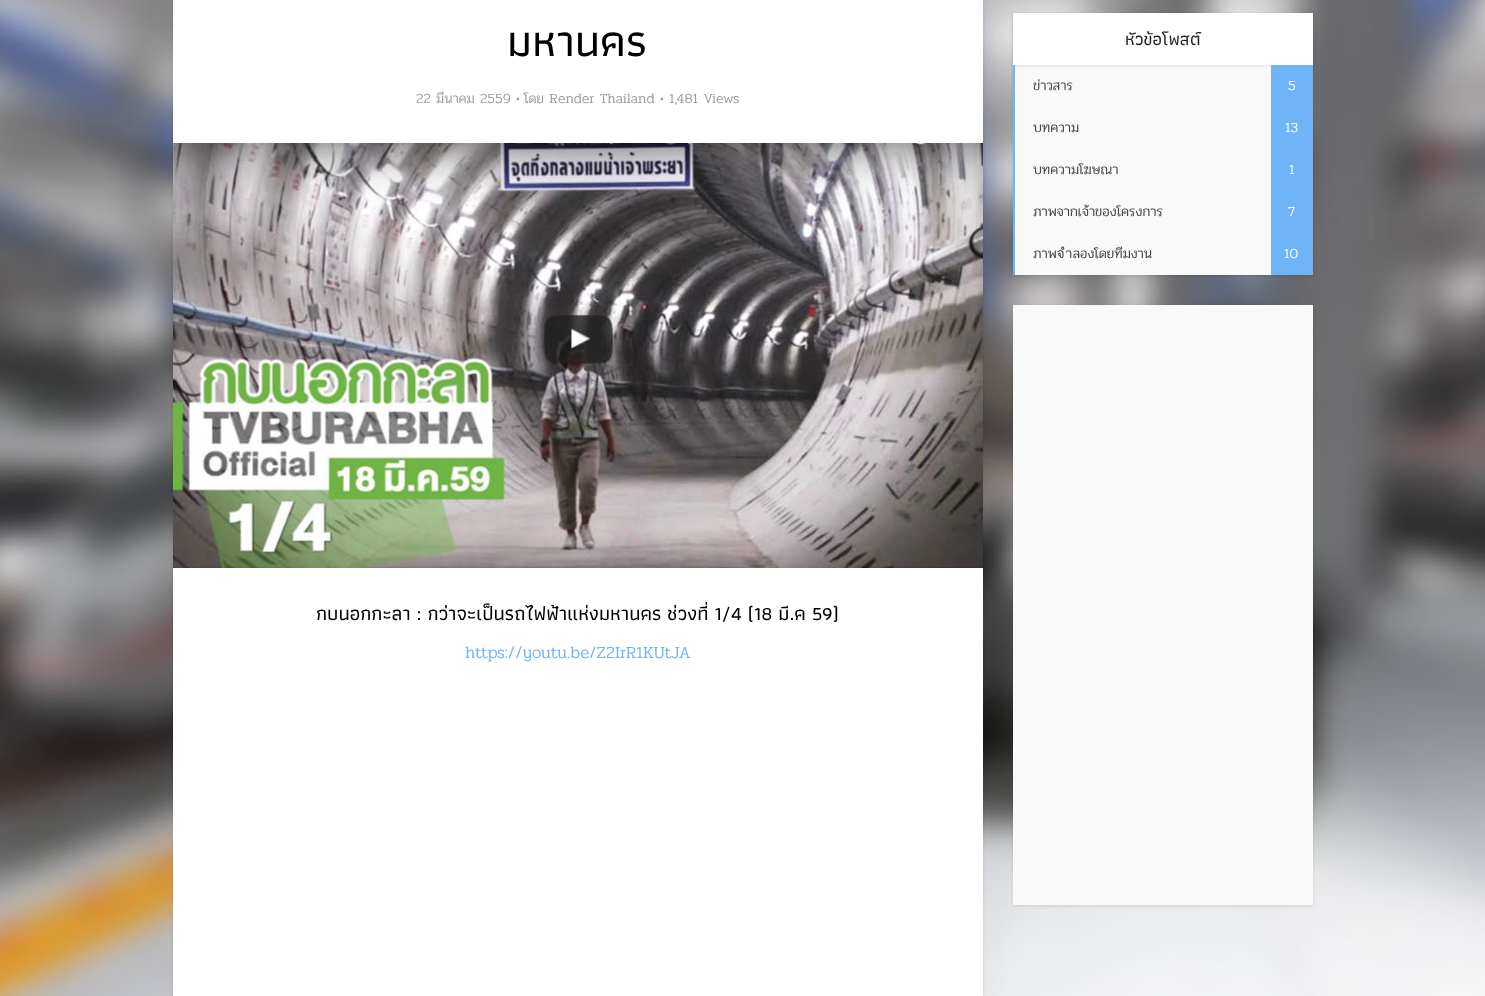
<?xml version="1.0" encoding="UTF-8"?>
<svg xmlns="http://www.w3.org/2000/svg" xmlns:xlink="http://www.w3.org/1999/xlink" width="1485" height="996">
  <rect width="100%" height="100%" fill="#ffffff" />
  <image x="0" y="0" width="1485" height="996" xlink:href="image1.png" />
  <rect x="173" y="-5" width="810" height="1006" fill="#000000" fill-opacity="0.1" filter="blur(1.5px)" />
  <rect x="173" width="810" height="996" fill="#ffffff" />
  <image x="173" y="143" width="810" height="425" xlink:href="image2.png" />
  <rect x="1013" y="14" width="300" height="262" fill="#000000" fill-opacity="0.1" filter="blur(1.5px)" />
  <rect x="1015" y="65" width="256" height="210" fill="#f9f9f9" />
  <rect x="1013" y="14" width="300" height="52" fill="#000000" fill-opacity="0.1" filter="blur(1.5px)" />
  <rect x="1013" y="13" width="300" height="52" fill="#ffffff" />
  <rect x="1013" y="65" width="2" height="210" fill="#6eb4f6" />
  <rect x="1271" y="65" width="42" height="210" fill="#6eb4f6" />
  <rect x="1013" y="306" width="300" height="600" fill="#000000" fill-opacity="0.1" filter="blur(1.5px)" />
  <rect x="1013" y="305" width="300" height="600" fill="#f9f9f9" />
  <text x="507" y="56" style="font-family: Athiti; font-size: 45px; font-weight: 500; fill: #000000">มหานคร</text>
  <text x="416" y="103" style="font-family: Pridi; font-size: 14px; font-weight: 300; fill: #9b9b9b">22 มีนาคม 2559</text>
  <text x="516" y="103" style="font-family: Pridi; font-size: 12px; font-weight: 300; fill: #9b9b9b">•</text>
  <text x="524" y="103" style="font-family: Pridi; font-size: 14px; font-weight: 300; fill: #9b9b9b">โดย Render Thailand</text>
  <text x="660" y="103" style="font-family: Pridi; font-size: 12px; font-weight: 300; fill: #9b9b9b">•</text>
  <text x="669" y="103" style="font-family: Pridi; font-size: 14px; font-weight: 300; fill: #9b9b9b">1,481 Views</text>
  <text x="316" y="620" style="font-family: Athiti; font-size: 20px; font-weight: 500; fill: #000000">กบนอกกะลา : กว่าจะเป็นรถไฟฟ้าแห่งมหานคร ช่วงที่ 1/4 (18 มี.ค 59)</text>
  <text x="465" y="658" style="font-family: Pridi; font-size: 17px; font-weight: 300; fill: #6eb4f6">https://youtu.be/Z2IrR1KUtJA</text>
  <text x="1125" y="45" style="font-family: Athiti; font-size: 18px; font-weight: 500; fill: #232323">หัวข้อโพสต์</text>
  <text x="1033" y="90" style="font-family: Pridi; font-size: 14px; font-weight: 300; fill: #444444">ข่าวสาร</text>
  <text x="1288" y="90" style="font-family: Pridi; font-size: 14px; font-weight: 300; fill: #ffffff">5</text>
  <text x="1033" y="132" style="font-family: Pridi; font-size: 14px; font-weight: 300; fill: #444444">บทความ</text>
  <text x="1285" y="132" style="font-family: Pridi; font-size: 14px; font-weight: 300; fill: #ffffff">13</text>
  <text x="1033" y="174" style="font-family: Pridi; font-size: 14px; font-weight: 300; fill: #444444">บทความโฆษณา</text>
  <text x="1289" y="174" style="font-family: Pridi; font-size: 14px; font-weight: 300; fill: #ffffff">1</text>
  <text x="1033" y="216" style="font-family: Pridi; font-size: 14px; font-weight: 300; fill: #444444">ภาพจากเจ้าของโครงการ</text>
  <text x="1288" y="216" style="font-family: Pridi; font-size: 14px; font-weight: 300; fill: #ffffff">7</text>
  <text x="1033" y="258" style="font-family: Pridi; font-size: 14px; font-weight: 300; fill: #444444">ภาพจำลองโดยทีมงาน</text>
  <text x="1284" y="258" style="font-family: Pridi; font-size: 14px; font-weight: 300; fill: #ffffff">10</text>
</svg>
